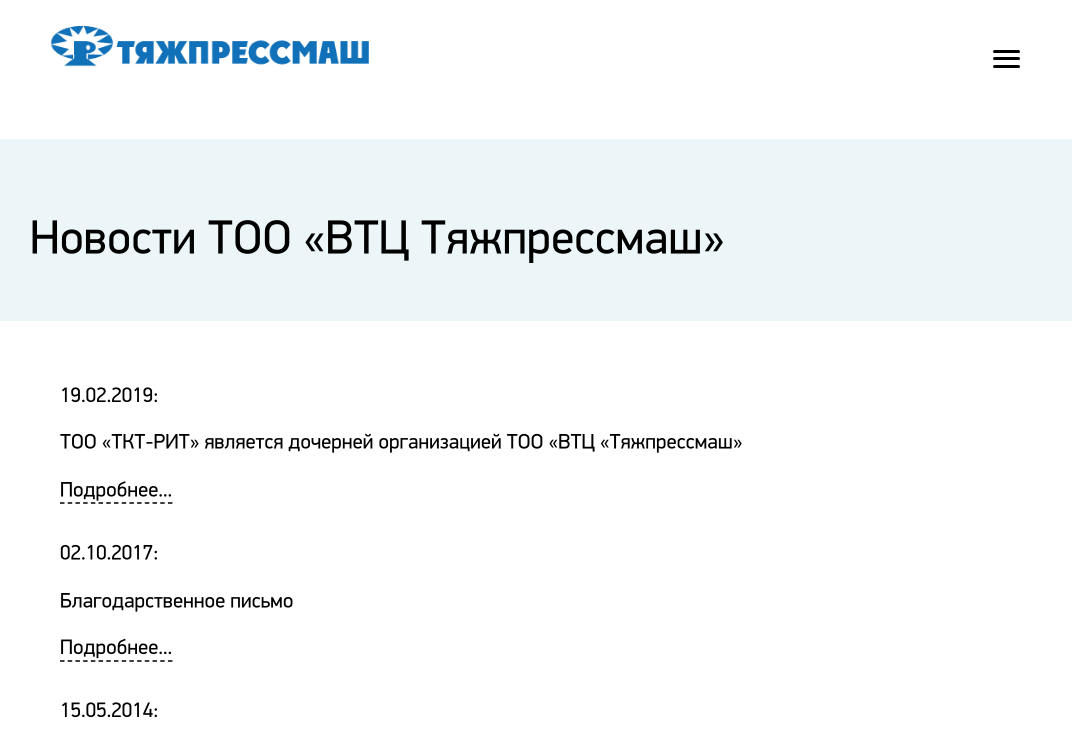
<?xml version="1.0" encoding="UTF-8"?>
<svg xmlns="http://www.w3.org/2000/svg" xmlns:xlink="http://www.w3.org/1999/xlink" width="1072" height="739">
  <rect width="100%" height="100%" fill="#ffffff" />
  <image x="50" y="26" width="319" height="41" xlink:href="image1.png" />
  <rect x="993" y="50" width="27" height="3" rx="1.5" fill="#000000" />
  <rect x="993" y="57" width="27" height="3" rx="1.5" fill="#000000" />
  <rect x="993" y="65" width="27" height="3" rx="1.5" fill="#000000" />
  <rect y="139" width="1072" height="182" fill="#ecf6f8" />
  <image x="32" y="220" width="691" height="43" xlink:href="image2.png" />
  <image x="62" y="387" width="95" height="16" xlink:href="image3.png" />
  <image x="60" y="433" width="682" height="20" xlink:href="image4.png" />
  <image x="61" y="481" width="111" height="20" xlink:href="image5.png" />
  <path d="M 60 503 h 112.5" fill="none" stroke="#000000" stroke-width="1.5" stroke-dasharray="4.5 3.21" />
  <image x="60" y="544" width="97" height="16" xlink:href="image6.png" />
  <image x="61" y="593" width="232" height="19" xlink:href="image7.png" />
  <image x="61" y="638" width="111" height="21" xlink:href="image8.png" />
  <path d="M 60 661 h 112.5" fill="none" stroke="#000000" stroke-width="1.5" stroke-dasharray="4.5 3.21" />
  <image x="62" y="702" width="95" height="16" xlink:href="image9.png" />
</svg>
